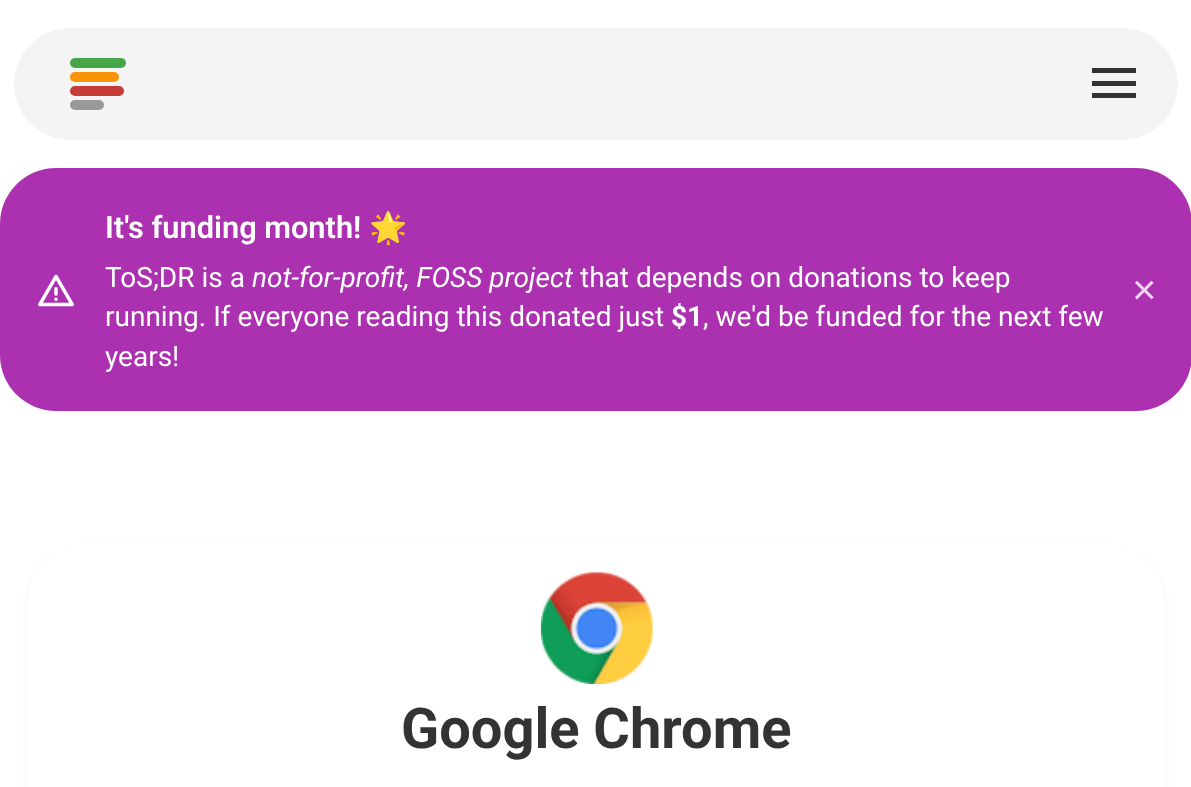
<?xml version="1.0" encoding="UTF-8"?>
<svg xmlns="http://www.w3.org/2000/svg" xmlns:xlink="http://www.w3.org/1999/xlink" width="1191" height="787">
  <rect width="100%" height="100%" fill="#ffffff" />
  <rect x="14" y="28" width="1164" height="112" rx="56" fill="#f4f4f4" />
  <rect x="70" y="58" width="56" height="10" rx="5" fill="#46a546" />
  <rect x="70" y="72" width="49" height="10" rx="5" fill="#f89406" />
  <rect x="70" y="86" width="54" height="10" rx="5" fill="#c43c35" />
  <rect x="70" y="100" width="34" height="10" rx="5" fill="#999999" />
  <rect x="1092" y="68" width="44" height="5" fill="#333333" />
  <rect x="1092" y="81" width="44" height="5" fill="#333333" />
  <rect x="1092" y="93" width="44" height="5" fill="#333333" />
  <rect y="168" width="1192" height="243" rx="56" fill="#ac31b0" />
  <image x="38" y="274" width="36" height="33" xlink:href="image1.png" />
  <rect x="28" y="548" width="1136" height="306" rx="56" fill="#000000" fill-opacity="0.05" filter="blur(3.5px)" />
  <rect x="28" y="544" width="1136" height="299" rx="56" fill="#ffffff" />
  <image x="540" y="572" width="113" height="113" xlink:href="image2.png" />
  <text x="105" y="238" style="font-family: Roboto; font-size: 30.75px; font-weight: 600; fill: #ffffff">It's funding month!</text>
  <text x="369" y="238" style="font-family: Noto Color Emoji; font-size: 30.75px; font-weight: bold; fill: #ffffff">🌟</text>
  <text x="105" y="287" style="font-family: Roboto; font-size: 28px; fill: #ffffff">ToS;DR is a</text>
  <text x="252" y="287" style="font-family: Roboto; font-size: 28px; font-style: italic; fill: #ffffff">not-for-profit, FOSS project</text>
  <text x="580" y="287" style="font-family: Roboto; font-size: 28px; fill: #ffffff">that depends on donations to keep</text>
  <text x="105" y="326" style="font-family: Roboto; font-size: 28px; fill: #ffffff">running. If everyone reading this donated just</text>
  <text x="671" y="326" style="font-family: Roboto; font-size: 28px; font-weight: bold; fill: #ffffff">$1</text>
  <text x="703" y="326" style="font-family: Roboto; font-size: 28px; fill: #ffffff">, we'd be funded for the next few</text>
  <text x="105" y="366" style="font-family: Roboto; font-size: 28px; fill: #ffffff">years!</text>
  <text x="1132" y="304" style="font-family: Liberation Sans; font-size: 42px; fill: #eed6ef">×</text>
  <text x="401" y="748" style="font-family: Roboto; font-size: 56px; font-weight: bold; fill: #333333">Google Chrome</text>
</svg>
